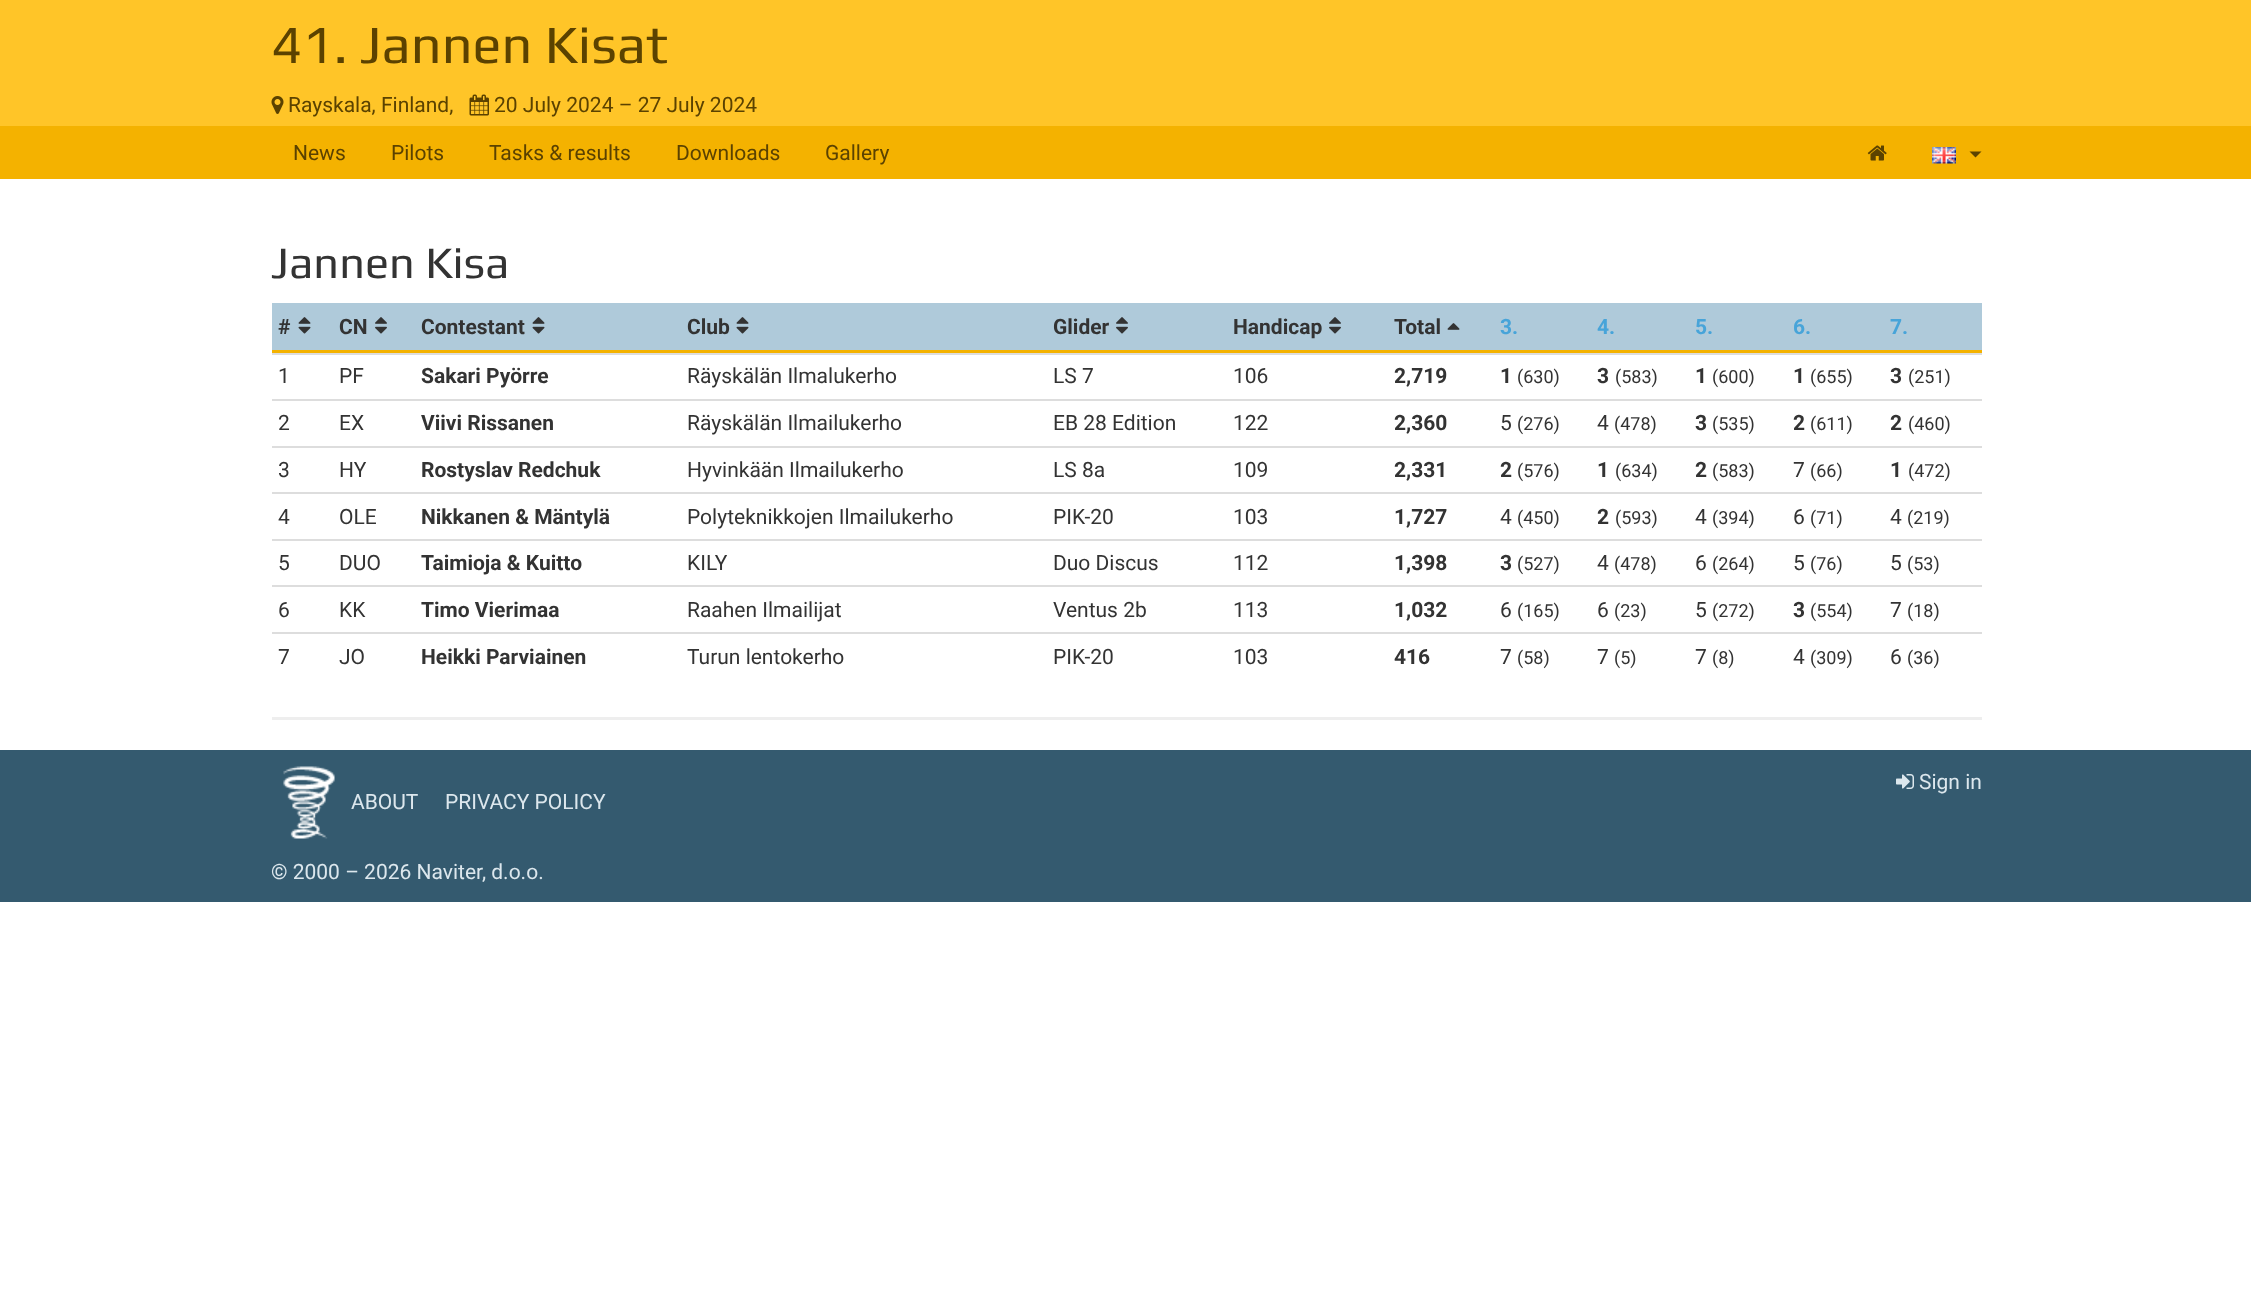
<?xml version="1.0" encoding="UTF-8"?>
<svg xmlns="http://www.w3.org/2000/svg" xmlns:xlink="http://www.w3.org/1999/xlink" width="2251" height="1289">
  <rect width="100%" height="100%" fill="#ffffff" />
  <rect width="2251" height="126" fill="#ffc528" />
  <image x="271" y="96" width="13" height="18" xlink:href="image1.png" />
  <image x="469" y="94" width="20" height="22" xlink:href="image2.png" />
  <rect y="126" width="2251" height="53" fill="#f4b200" />
  <image x="1867" y="145" width="20" height="16" xlink:href="image3.png" />
  <image x="1932" y="147" width="24" height="17" xlink:href="image4.png" />
  <path d="M 1969.5 151.5 h 12 l -6 6 z" fill="#5b4200" />
  <rect x="272" y="303" width="1710" height="47" fill="#afcada" />
  <rect x="272" y="350" width="1710" height="3" fill="#f4b200" />
  <image x="298" y="317" width="13" height="17" xlink:href="image5.png" />
  <image x="375" y="317" width="12" height="17" xlink:href="image6.png" />
  <image x="532" y="317" width="13" height="17" xlink:href="image5.png" />
  <image x="736" y="317" width="13" height="17" xlink:href="image5.png" />
  <image x="1116" y="317" width="12" height="17" xlink:href="image6.png" />
  <image x="1329" y="317" width="12" height="17" xlink:href="image6.png" />
  <image x="1447" y="323" width="13" height="7" xlink:href="image7.png" />
  <rect x="272" y="353" width="1710" height="2" fill="#dddddd" />
  <rect x="272" y="399" width="1710" height="2" fill="#dddddd" />
  <rect x="272" y="446" width="1710" height="2" fill="#dddddd" />
  <rect x="272" y="492" width="1710" height="2" fill="#dddddd" />
  <rect x="272" y="539" width="1710" height="2" fill="#dddddd" />
  <rect x="272" y="585" width="1710" height="2" fill="#dddddd" />
  <rect x="272" y="632" width="1710" height="2" fill="#dddddd" />
  <rect x="272" y="717" width="1710" height="3" fill="#eeeeee" />
  <rect y="750" width="2251" height="152" fill="#345a6f" />
  <image x="1896" y="774" width="18" height="15" xlink:href="image8.png" />
  <image x="283" y="766" width="52" height="73" xlink:href="image9.png" />
  <text x="271" y="63" style="font-family: Play; font-size: 54px; fill: #5b4200">41. Jannen Kisat</text>
  <text x="288" y="112" style="font-family: Roboto; font-size: 21px; fill: #5b4200">Rayskala, Finland,</text>
  <text x="494" y="112" style="font-family: Roboto; font-size: 21px; fill: #5b4200">20 July 2024 – 27 July 2024</text>
  <text x="293" y="160" style="font-family: Roboto; font-size: 21px; fill: #5b4200">News</text>
  <text x="391" y="160" style="font-family: Roboto; font-size: 21px; fill: #5b4200">Pilots</text>
  <text x="489" y="160" style="font-family: Roboto; font-size: 21px; fill: #5b4200">Tasks &amp; results</text>
  <text x="676" y="160" style="font-family: Roboto; font-size: 21px; fill: #5b4200">Downloads</text>
  <text x="825" y="160" style="font-family: Roboto; font-size: 21px; fill: #5b4200">Gallery</text>
  <text x="271" y="278" style="font-family: Play; font-size: 45px; fill: #333333">Jannen Kisa</text>
  <text x="278" y="334" style="font-family: Roboto; font-size: 21px; font-weight: bold; fill: #333333">#</text>
  <text x="339" y="334" style="font-family: Roboto; font-size: 21px; font-weight: bold; fill: #333333">CN</text>
  <text x="421" y="334" style="font-family: Roboto; font-size: 21px; font-weight: bold; fill: #333333">Contestant</text>
  <text x="687" y="334" style="font-family: Roboto; font-size: 21px; font-weight: bold; fill: #333333">Club</text>
  <text x="1053" y="334" style="font-family: Roboto; font-size: 21px; font-weight: bold; fill: #333333">Glider</text>
  <text x="1233" y="334" style="font-family: Roboto; font-size: 21px; font-weight: bold; fill: #333333">Handicap</text>
  <text x="1394" y="334" style="font-family: Roboto; font-size: 21px; font-weight: bold; fill: #333333">Total</text>
  <text x="1500" y="334" style="font-family: Roboto; font-size: 21px; font-weight: bold; fill: #47a4d9">3.</text>
  <text x="1597" y="334" style="font-family: Roboto; font-size: 21px; font-weight: bold; fill: #47a4d9">4.</text>
  <text x="1695" y="334" style="font-family: Roboto; font-size: 21px; font-weight: bold; fill: #47a4d9">5.</text>
  <text x="1793" y="334" style="font-family: Roboto; font-size: 21px; font-weight: bold; fill: #47a4d9">6.</text>
  <text x="1890" y="334" style="font-family: Roboto; font-size: 21px; font-weight: bold; fill: #47a4d9">7.</text>
  <text x="278" y="383" style="font-family: Roboto; font-size: 21px; fill: #333333">1</text>
  <text x="339" y="383" style="font-family: Roboto; font-size: 21px; fill: #333333">PF</text>
  <text x="421" y="383" style="font-family: Roboto; font-size: 21px; font-weight: bold; fill: #333333">Sakari Pyörre</text>
  <text x="687" y="383" style="font-family: Roboto; font-size: 21px; fill: #333333">Räyskälän Ilmalukerho</text>
  <text x="1053" y="383" style="font-family: Roboto; font-size: 21px; fill: #333333">LS 7</text>
  <text x="1233" y="383" style="font-family: Roboto; font-size: 21px; fill: #333333">106</text>
  <text x="1394" y="383" style="font-family: Roboto; font-size: 21px; font-weight: bold; fill: #333333">2,719</text>
  <text x="1500" y="383" style="font-family: Roboto; font-size: 21px; font-weight: bold; fill: #333333">1</text>
  <text x="1517" y="383" style="font-family: Roboto; font-size: 18px; fill: #333333">(630)</text>
  <text x="1597" y="383" style="font-family: Roboto; font-size: 21px; font-weight: bold; fill: #333333">3</text>
  <text x="1615" y="383" style="font-family: Roboto; font-size: 18px; fill: #333333">(583)</text>
  <text x="1695" y="383" style="font-family: Roboto; font-size: 21px; font-weight: bold; fill: #333333">1</text>
  <text x="1712" y="383" style="font-family: Roboto; font-size: 18px; fill: #333333">(600)</text>
  <text x="1793" y="383" style="font-family: Roboto; font-size: 21px; font-weight: bold; fill: #333333">1</text>
  <text x="1810" y="383" style="font-family: Roboto; font-size: 18px; fill: #333333">(655)</text>
  <text x="1890" y="383" style="font-family: Roboto; font-size: 21px; font-weight: bold; fill: #333333">3</text>
  <text x="1908" y="383" style="font-family: Roboto; font-size: 18px; fill: #333333">(251)</text>
  <text x="278" y="430" style="font-family: Roboto; font-size: 21px; fill: #333333">2</text>
  <text x="339" y="430" style="font-family: Roboto; font-size: 21px; fill: #333333">EX</text>
  <text x="421" y="430" style="font-family: Roboto; font-size: 21px; font-weight: bold; fill: #333333">Viivi Rissanen</text>
  <text x="687" y="430" style="font-family: Roboto; font-size: 21px; fill: #333333">Räyskälän Ilmailukerho</text>
  <text x="1053" y="430" style="font-family: Roboto; font-size: 21px; fill: #333333">EB 28 Edition</text>
  <text x="1233" y="430" style="font-family: Roboto; font-size: 21px; fill: #333333">122</text>
  <text x="1394" y="430" style="font-family: Roboto; font-size: 21px; font-weight: bold; fill: #333333">2,360</text>
  <text x="1500" y="430" style="font-family: Roboto; font-size: 21px; fill: #333333">5</text>
  <text x="1517" y="430" style="font-family: Roboto; font-size: 18px; fill: #333333">(276)</text>
  <text x="1597" y="430" style="font-family: Roboto; font-size: 21px; fill: #333333">4</text>
  <text x="1614" y="430" style="font-family: Roboto; font-size: 18px; fill: #333333">(478)</text>
  <text x="1695" y="430" style="font-family: Roboto; font-size: 21px; font-weight: bold; fill: #333333">3</text>
  <text x="1712" y="430" style="font-family: Roboto; font-size: 18px; fill: #333333">(535)</text>
  <text x="1793" y="430" style="font-family: Roboto; font-size: 21px; font-weight: bold; fill: #333333">2</text>
  <text x="1810" y="430" style="font-family: Roboto; font-size: 18px; fill: #333333">(611)</text>
  <text x="1890" y="430" style="font-family: Roboto; font-size: 21px; font-weight: bold; fill: #333333">2</text>
  <text x="1908" y="430" style="font-family: Roboto; font-size: 18px; fill: #333333">(460)</text>
  <text x="278" y="477" style="font-family: Roboto; font-size: 21px; fill: #333333">3</text>
  <text x="339" y="477" style="font-family: Roboto; font-size: 21px; fill: #333333">HY</text>
  <text x="421" y="477" style="font-family: Roboto; font-size: 21px; font-weight: bold; fill: #333333">Rostyslav Redchuk</text>
  <text x="687" y="477" style="font-family: Roboto; font-size: 21px; fill: #333333">Hyvinkään Ilmailukerho</text>
  <text x="1053" y="477" style="font-family: Roboto; font-size: 21px; fill: #333333">LS 8a</text>
  <text x="1233" y="477" style="font-family: Roboto; font-size: 21px; fill: #333333">109</text>
  <text x="1394" y="477" style="font-family: Roboto; font-size: 21px; font-weight: bold; fill: #333333">2,331</text>
  <text x="1500" y="477" style="font-family: Roboto; font-size: 21px; font-weight: bold; fill: #333333">2</text>
  <text x="1517" y="477" style="font-family: Roboto; font-size: 18px; fill: #333333">(576)</text>
  <text x="1597" y="477" style="font-family: Roboto; font-size: 21px; font-weight: bold; fill: #333333">1</text>
  <text x="1615" y="477" style="font-family: Roboto; font-size: 18px; fill: #333333">(634)</text>
  <text x="1695" y="477" style="font-family: Roboto; font-size: 21px; font-weight: bold; fill: #333333">2</text>
  <text x="1712" y="477" style="font-family: Roboto; font-size: 18px; fill: #333333">(583)</text>
  <text x="1793" y="477" style="font-family: Roboto; font-size: 21px; fill: #333333">7</text>
  <text x="1810" y="477" style="font-family: Roboto; font-size: 18px; fill: #333333">(66)</text>
  <text x="1890" y="477" style="font-family: Roboto; font-size: 21px; font-weight: bold; fill: #333333">1</text>
  <text x="1908" y="477" style="font-family: Roboto; font-size: 18px; fill: #333333">(472)</text>
  <text x="278" y="524" style="font-family: Roboto; font-size: 21px; fill: #333333">4</text>
  <text x="339" y="524" style="font-family: Roboto; font-size: 21px; fill: #333333">OLE</text>
  <text x="421" y="524" style="font-family: Roboto; font-size: 21px; font-weight: bold; fill: #333333">Nikkanen &amp; Mäntylä</text>
  <text x="687" y="524" style="font-family: Roboto; font-size: 21px; fill: #333333">Polyteknikkojen Ilmailukerho</text>
  <text x="1053" y="524" style="font-family: Roboto; font-size: 21px; fill: #333333">PIK-20</text>
  <text x="1233" y="524" style="font-family: Roboto; font-size: 21px; fill: #333333">103</text>
  <text x="1394" y="524" style="font-family: Roboto; font-size: 21px; font-weight: bold; fill: #333333">1,727</text>
  <text x="1500" y="524" style="font-family: Roboto; font-size: 21px; fill: #333333">4</text>
  <text x="1517" y="524" style="font-family: Roboto; font-size: 18px; fill: #333333">(450)</text>
  <text x="1597" y="524" style="font-family: Roboto; font-size: 21px; font-weight: bold; fill: #333333">2</text>
  <text x="1615" y="524" style="font-family: Roboto; font-size: 18px; fill: #333333">(593)</text>
  <text x="1695" y="524" style="font-family: Roboto; font-size: 21px; fill: #333333">4</text>
  <text x="1712" y="524" style="font-family: Roboto; font-size: 18px; fill: #333333">(394)</text>
  <text x="1793" y="524" style="font-family: Roboto; font-size: 21px; fill: #333333">6</text>
  <text x="1810" y="524" style="font-family: Roboto; font-size: 18px; fill: #333333">(71)</text>
  <text x="1890" y="524" style="font-family: Roboto; font-size: 21px; fill: #333333">4</text>
  <text x="1907" y="524" style="font-family: Roboto; font-size: 18px; fill: #333333">(219)</text>
  <text x="278" y="570" style="font-family: Roboto; font-size: 21px; fill: #333333">5</text>
  <text x="339" y="570" style="font-family: Roboto; font-size: 21px; fill: #333333">DUO</text>
  <text x="421" y="570" style="font-family: Roboto; font-size: 21px; font-weight: bold; fill: #333333">Taimioja &amp; Kuitto</text>
  <text x="687" y="570" style="font-family: Roboto; font-size: 21px; fill: #333333">KILY</text>
  <text x="1053" y="570" style="font-family: Roboto; font-size: 21px; fill: #333333">Duo Discus</text>
  <text x="1233" y="570" style="font-family: Roboto; font-size: 21px; fill: #333333">112</text>
  <text x="1394" y="570" style="font-family: Roboto; font-size: 21px; font-weight: bold; fill: #333333">1,398</text>
  <text x="1500" y="570" style="font-family: Roboto; font-size: 21px; font-weight: bold; fill: #333333">3</text>
  <text x="1517" y="570" style="font-family: Roboto; font-size: 18px; fill: #333333">(527)</text>
  <text x="1597" y="570" style="font-family: Roboto; font-size: 21px; fill: #333333">4</text>
  <text x="1614" y="570" style="font-family: Roboto; font-size: 18px; fill: #333333">(478)</text>
  <text x="1695" y="570" style="font-family: Roboto; font-size: 21px; fill: #333333">6</text>
  <text x="1712" y="570" style="font-family: Roboto; font-size: 18px; fill: #333333">(264)</text>
  <text x="1793" y="570" style="font-family: Roboto; font-size: 21px; fill: #333333">5</text>
  <text x="1810" y="570" style="font-family: Roboto; font-size: 18px; fill: #333333">(76)</text>
  <text x="1890" y="570" style="font-family: Roboto; font-size: 21px; fill: #333333">5</text>
  <text x="1907" y="570" style="font-family: Roboto; font-size: 18px; fill: #333333">(53)</text>
  <text x="278" y="617" style="font-family: Roboto; font-size: 21px; fill: #333333">6</text>
  <text x="339" y="617" style="font-family: Roboto; font-size: 21px; fill: #333333">KK</text>
  <text x="421" y="617" style="font-family: Roboto; font-size: 21px; font-weight: bold; fill: #333333">Timo Vierimaa</text>
  <text x="687" y="617" style="font-family: Roboto; font-size: 21px; fill: #333333">Raahen Ilmailijat</text>
  <text x="1053" y="617" style="font-family: Roboto; font-size: 21px; fill: #333333">Ventus 2b</text>
  <text x="1233" y="617" style="font-family: Roboto; font-size: 21px; fill: #333333">113</text>
  <text x="1394" y="617" style="font-family: Roboto; font-size: 21px; font-weight: bold; fill: #333333">1,032</text>
  <text x="1500" y="617" style="font-family: Roboto; font-size: 21px; fill: #333333">6</text>
  <text x="1517" y="617" style="font-family: Roboto; font-size: 18px; fill: #333333">(165)</text>
  <text x="1597" y="617" style="font-family: Roboto; font-size: 21px; fill: #333333">6</text>
  <text x="1614" y="617" style="font-family: Roboto; font-size: 18px; fill: #333333">(23)</text>
  <text x="1695" y="617" style="font-family: Roboto; font-size: 21px; fill: #333333">5</text>
  <text x="1712" y="617" style="font-family: Roboto; font-size: 18px; fill: #333333">(272)</text>
  <text x="1793" y="617" style="font-family: Roboto; font-size: 21px; font-weight: bold; fill: #333333">3</text>
  <text x="1810" y="617" style="font-family: Roboto; font-size: 18px; fill: #333333">(554)</text>
  <text x="1890" y="617" style="font-family: Roboto; font-size: 21px; fill: #333333">7</text>
  <text x="1907" y="617" style="font-family: Roboto; font-size: 18px; fill: #333333">(18)</text>
  <text x="278" y="664" style="font-family: Roboto; font-size: 21px; fill: #333333">7</text>
  <text x="339" y="664" style="font-family: Roboto; font-size: 21px; fill: #333333">JO</text>
  <text x="421" y="664" style="font-family: Roboto; font-size: 21px; font-weight: bold; fill: #333333">Heikki Parviainen</text>
  <text x="687" y="664" style="font-family: Roboto; font-size: 21px; fill: #333333">Turun lentokerho</text>
  <text x="1053" y="664" style="font-family: Roboto; font-size: 21px; fill: #333333">PIK-20</text>
  <text x="1233" y="664" style="font-family: Roboto; font-size: 21px; fill: #333333">103</text>
  <text x="1394" y="664" style="font-family: Roboto; font-size: 21px; font-weight: bold; fill: #333333">416</text>
  <text x="1500" y="664" style="font-family: Roboto; font-size: 21px; fill: #333333">7</text>
  <text x="1517" y="664" style="font-family: Roboto; font-size: 18px; fill: #333333">(58)</text>
  <text x="1597" y="664" style="font-family: Roboto; font-size: 21px; fill: #333333">7</text>
  <text x="1614" y="664" style="font-family: Roboto; font-size: 18px; fill: #333333">(5)</text>
  <text x="1695" y="664" style="font-family: Roboto; font-size: 21px; fill: #333333">7</text>
  <text x="1712" y="664" style="font-family: Roboto; font-size: 18px; fill: #333333">(8)</text>
  <text x="1793" y="664" style="font-family: Roboto; font-size: 21px; fill: #333333">4</text>
  <text x="1810" y="664" style="font-family: Roboto; font-size: 18px; fill: #333333">(309)</text>
  <text x="1890" y="664" style="font-family: Roboto; font-size: 21px; fill: #333333">6</text>
  <text x="1907" y="664" style="font-family: Roboto; font-size: 18px; fill: #333333">(36)</text>
  <text x="1919" y="789" style="font-family: Roboto; font-size: 21px; fill: #dce7ed">Sign in</text>
  <text x="351" y="809" style="font-family: Roboto; font-size: 21px; fill: #dce7ed">ABOUT</text>
  <text x="445" y="809" style="font-family: Roboto; font-size: 21px; fill: #dce7ed">PRIVACY POLICY</text>
  <text x="271" y="879" style="font-family: Roboto; font-size: 21px; fill: #dce7ed">© 2000 – 2026 Naviter, d.o.o.</text>
</svg>
